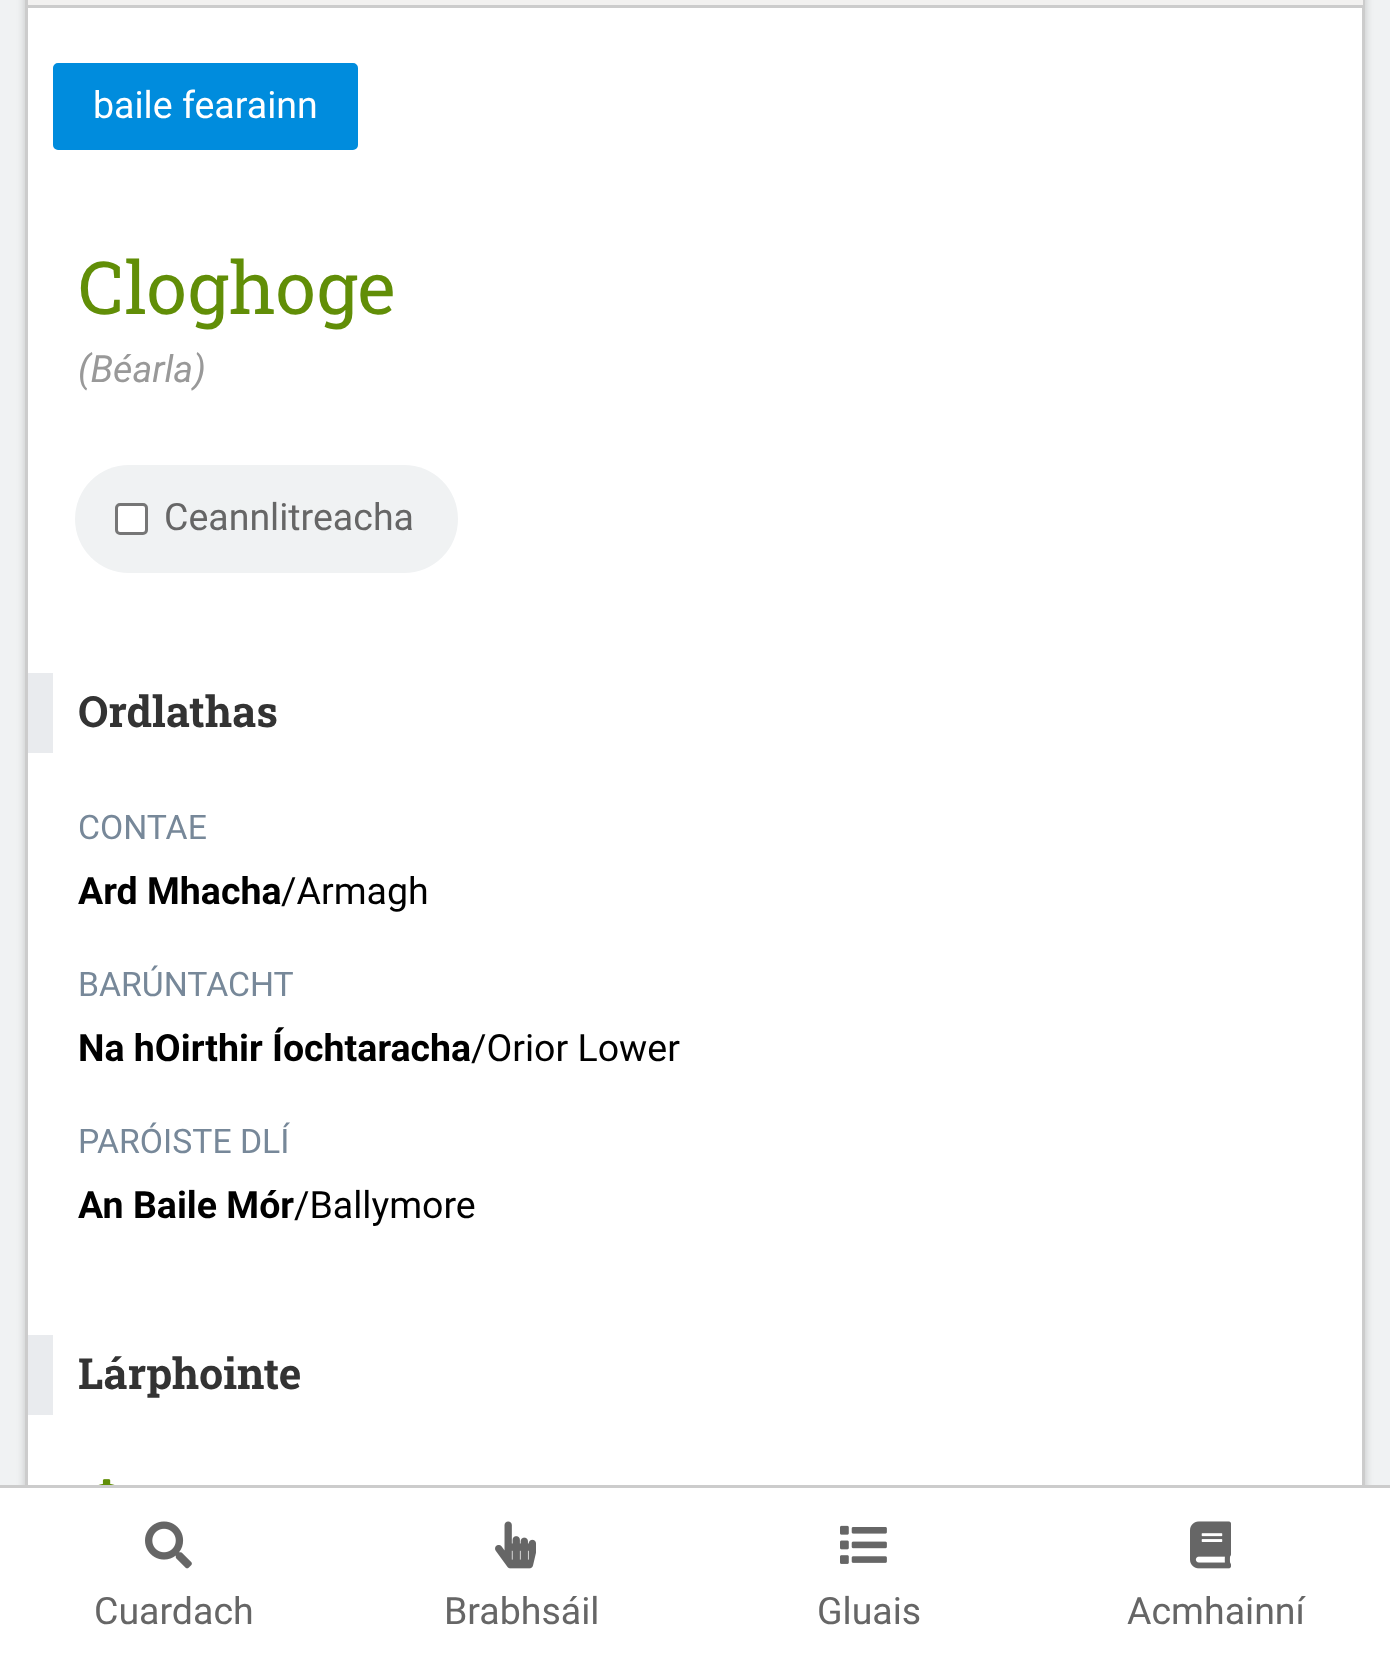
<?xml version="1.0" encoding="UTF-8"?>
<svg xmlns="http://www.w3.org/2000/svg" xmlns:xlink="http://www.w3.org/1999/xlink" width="1390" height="1671">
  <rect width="100%" height="100%" fill="#f0f2f3" />
  <rect x="25" y="-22" width="1340" height="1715" rx="10" fill="#969696" fill-opacity="0.5" filter="blur(4px)" />
  <rect x="28" y="8" width="1334" height="1477" fill="#ffffff" />
  <rect x="26.5" y="-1.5" width="1337" height="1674" fill="none" stroke="#cccccc" stroke-width="3" />
  <rect x="28" width="1335" height="5" fill="#f2f1f0" />
  <rect x="28" y="5" width="1335" height="3" fill="#cccccc" />
  <rect x="54.5" y="64.5" width="302" height="84" rx="3.5" fill="#008cdd" stroke="#008cdd" stroke-width="3" />
  <rect x="75" y="465" width="383" height="108" rx="54" fill="#f0f2f3" />
  <rect x="116.5" y="504.5" width="30" height="29" rx="3.5" fill="#ffffff" stroke="#767676" stroke-width="3" />
  <rect x="28" y="673" width="25" height="80" fill="#e9ebee" />
  <rect x="28" y="1335" width="25" height="80" fill="#e9ebee" />
  <image x="98" y="1479" width="17" height="6" xlink:href="image1.png" />
  <rect y="1488" width="1390" height="183" fill="#ffffff" />
  <rect y="1485" width="1390" height="3" fill="#cccccc" />
  <image x="145" y="1521" width="47" height="48" xlink:href="image2.png" />
  <image x="495" y="1521" width="41" height="48" xlink:href="image3.png" />
  <image x="840" y="1525" width="47" height="39" xlink:href="image4.png" />
  <image x="1190" y="1521" width="41" height="48" xlink:href="image5.png" />
  <text x="93" y="118" style="font-family: Roboto; font-size: 37.5px; fill: #ffffff">baile fearainn</text>
  <text x="78" y="314" style="font-family: Roboto Slab; font-size: 73px; fill: #618e07">Cloghoge</text>
  <text x="78" y="382" style="font-family: Roboto; font-size: 37.5px; font-style: italic; fill: #999999">(Béarla)</text>
  <text x="164" y="530" style="font-family: Roboto; font-size: 37.5px; fill: #666666">Ceannlitreacha</text>
  <text x="78" y="727" style="font-family: Roboto Slab; font-size: 43px; font-weight: bold; fill: #333333">Ordlathas</text>
  <text x="78" y="839" style="font-family: Roboto; font-size: 33.75px; fill: #778899">CONTAE</text>
  <text x="78" y="904" style="font-family: Roboto; font-size: 37.5px; font-weight: bold; fill: #000000">Ard Mhacha</text>
  <text x="281" y="904" style="font-family: Roboto; font-size: 37.5px; fill: #000000">/Armagh</text>
  <text x="78" y="996" style="font-family: Roboto; font-size: 33.75px; fill: #778899">BARÚNTACHT</text>
  <text x="78" y="1061" style="font-family: Roboto; font-size: 37.5px; font-weight: bold; fill: #000000">Na hOirthir Íochtaracha</text>
  <text x="471" y="1061" style="font-family: Roboto; font-size: 37.5px; fill: #000000">/Orior Lower</text>
  <text x="78" y="1153" style="font-family: Roboto; font-size: 33.75px; fill: #778899">PARÓISTE DLÍ</text>
  <text x="78" y="1218" style="font-family: Roboto; font-size: 37.5px; font-weight: bold; fill: #000000">An Baile Mór</text>
  <text x="294" y="1218" style="font-family: Roboto; font-size: 37.5px; fill: #000000">/Ballymore</text>
  <text x="78" y="1389" style="font-family: Roboto Slab; font-size: 43px; font-weight: bold; fill: #333333">Lárphointe</text>
  <text x="94" y="1624" style="font-family: Roboto; font-size: 37.5px; fill: #666666">Cuardach</text>
  <text x="444" y="1624" style="font-family: Roboto; font-size: 37.5px; fill: #666666">Brabhsáil</text>
  <text x="817" y="1624" style="font-family: Roboto; font-size: 37.5px; fill: #666666">Gluais</text>
  <text x="1127" y="1624" style="font-family: Roboto; font-size: 37.5px; fill: #666666">Acmhainní</text>
</svg>
